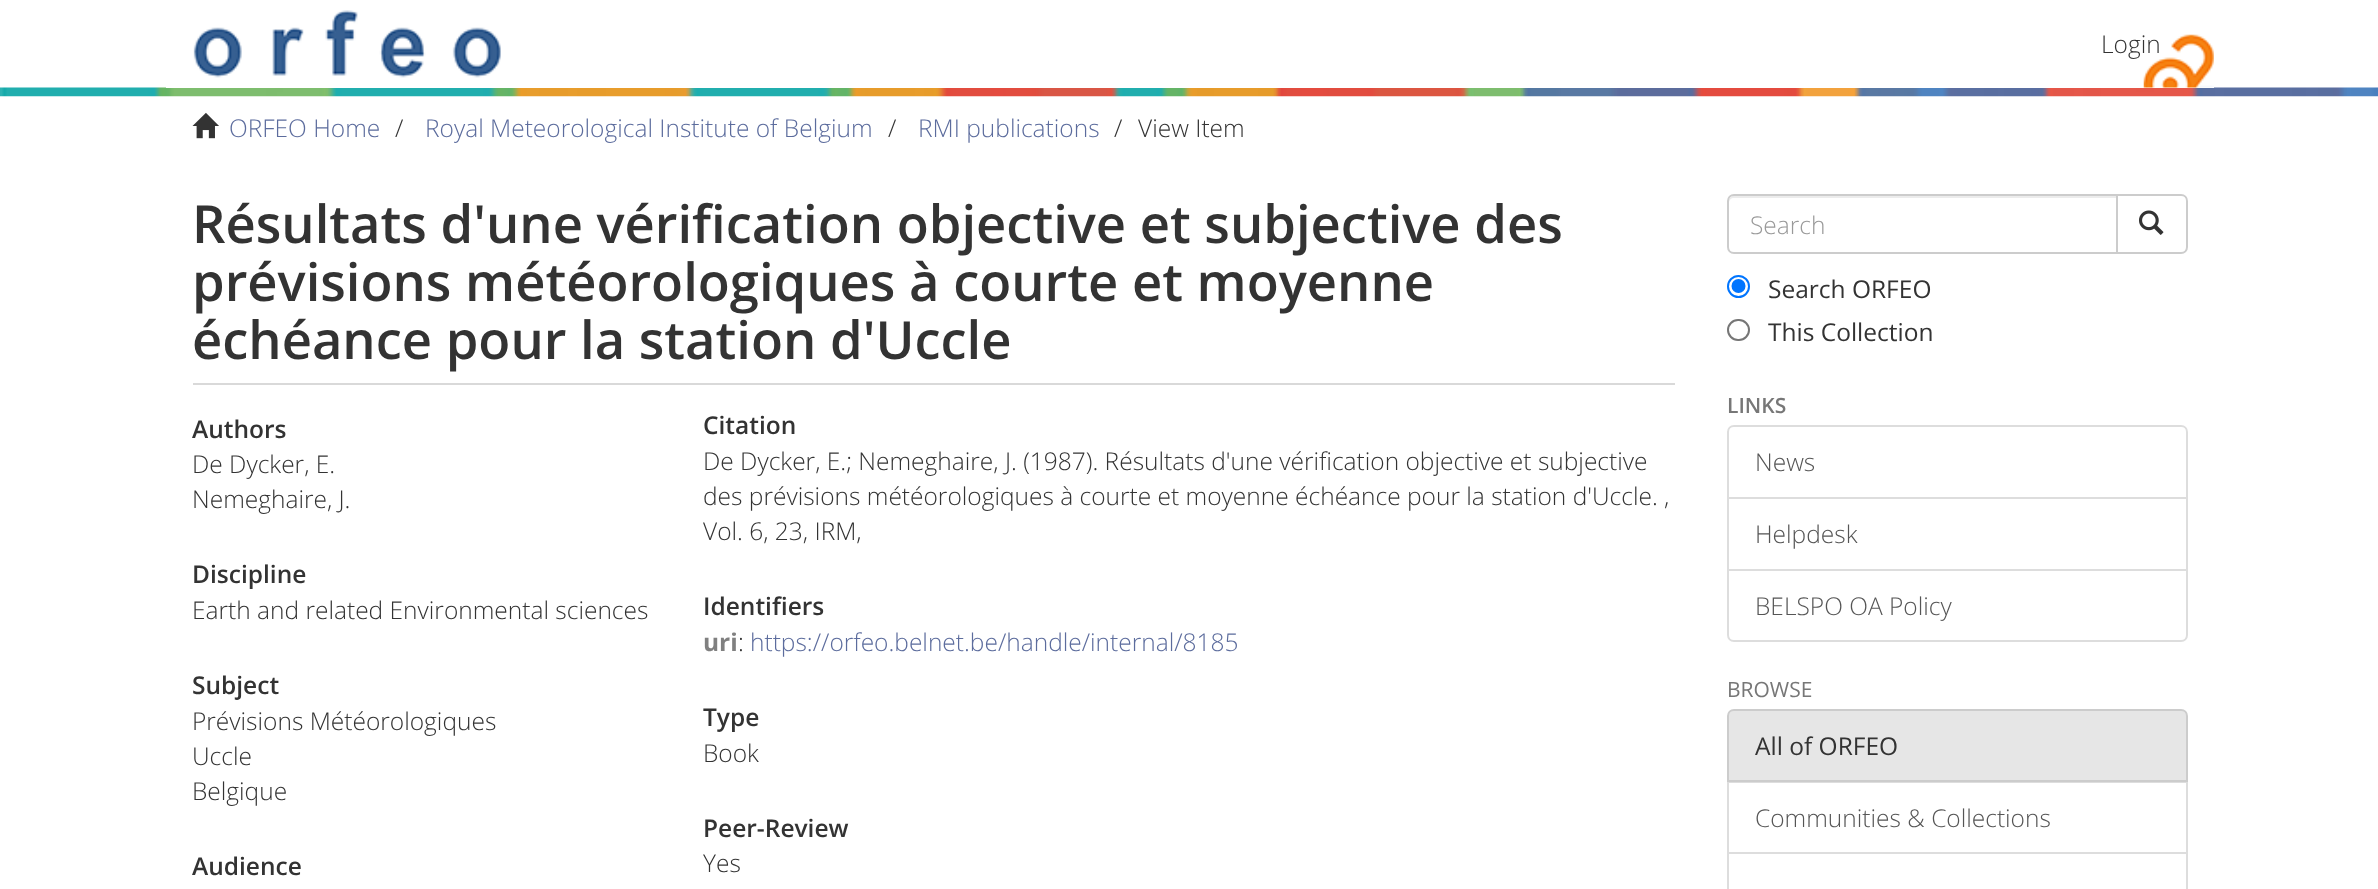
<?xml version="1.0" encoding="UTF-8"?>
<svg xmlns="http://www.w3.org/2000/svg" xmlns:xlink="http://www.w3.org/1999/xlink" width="2378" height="889">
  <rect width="100%" height="100%" fill="#ffffff" />
  <image x="0" y="87" width="2378" height="10" xlink:href="image3.png" />
  <rect x="166" y="87" width="2048" height="1" fill="#ffffff" />
  <image x="2143" y="34" width="71" height="54" xlink:href="image1.png" />
  <image x="193" y="10" width="308" height="68" xlink:href="image2.png" />
  <image x="192" y="112" width="27" height="27" xlink:href="image4.png" />
  <rect x="193" y="383" width="1482" height="2" fill="#d9d9d9" />
  <path d="M 2117 195 h 64 c 3.5 0 6 2.5 6 6 v 46 c 0 3.5 -2.5 6 -6 6 h -64 z" fill="none" stroke="#cccccc" stroke-width="2" />
  <path d="M 1734 194 h 384 v 60 h -384 c -4 0 -7 -3 -7 -7 v -46 c 0 -4 3 -7 7 -7 z" fill="#ffffff" />
  <path d="M 1734 198 h 382 v -2 h -382 c -3 0 -5 2 -5 5 v 2 c 0 -3 2 -5 5 -5 z" fill="#ececec" />
  <path d="M 1734 195 h 383 v 58 h -383 c -3.5 0 -6 -2.5 -6 -6 v -46 c 0 -3.5 2.5 -6 6 -6 z" fill="none" stroke="#cccccc" stroke-width="2" />
  <image x="2139" y="210" width="25" height="25" xlink:href="image5.png" />
  <circle cx="1738.5" cy="286.5" r="10.5" fill="none" stroke="#0075ff" stroke-width="2" />
  <circle cx="1738.5" cy="286" r="7" fill="#0075ff" />
  <rect x="1728" y="320" width="21" height="20" rx="10" fill="none" stroke="#767676" stroke-width="2" />
  <path d="M 1734 426 h 447 c 3.5 0 6 2.5 6 6 v 66 h -459 v -66 c 0 -3.5 2.5 -6 6 -6 z" fill="none" stroke="#dddddd" stroke-width="2" />
  <rect x="1728" y="498" width="459" height="72" fill="none" stroke="#dddddd" stroke-width="2" />
  <path d="M 1728 570 h 459 v 65 c 0 3.5 -2.5 6 -6 6 h -447 c -3.5 0 -6 -2.5 -6 -6 z" fill="#ffffff" stroke="#dddddd" stroke-width="2" />
  <rect x="1728" y="782" width="459" height="71" fill="none" stroke="#dddddd" stroke-width="2" />
  <path d="M 1734 710 h 447 c 3.5 0 6 2.5 6 6 v 65 h -459 v -65 c 0 -3.5 2.5 -6 6 -6 z" fill="#e6e6e6" stroke="#cccccc" stroke-width="2" />
  <rect x="1728" y="853" width="459" height="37" fill="none" stroke="#dddddd" stroke-width="2" />
  <text x="2101" y="53" style="font-family: Open Sans; font-size: 24.5px; font-weight: 300; fill: #333333">Login</text>
  <text x="229" y="137" style="font-family: Open Sans; font-size: 24.5px; font-weight: 300; fill: #5c6c9d">ORFEO Home</text>
  <text x="395" y="137" style="font-family: Open Sans; font-size: 24.5px; font-weight: 300; fill: #333333">/</text>
  <text x="425" y="137" style="font-family: Open Sans; font-size: 24.5px; font-weight: 300; fill: #5c6c9d">Royal Meteorological Institute of Belgium</text>
  <text x="888" y="137" style="font-family: Open Sans; font-size: 24.5px; font-weight: 300; fill: #333333">/</text>
  <text x="918" y="137" style="font-family: Open Sans; font-size: 24.5px; font-weight: 300; fill: #5c6c9d">RMI publications</text>
  <text x="1114" y="137" style="font-family: Open Sans; font-size: 24.5px; font-weight: 300; fill: #333333">/</text>
  <text x="1138" y="137" style="font-family: Open Sans; font-size: 24.5px; font-weight: 300; fill: #333333">View Item</text>
  <text x="192" y="243" style="font-family: Open Sans; font-size: 52.5px; font-weight: 600; fill: #333333">Résultats d'une vérification objective et subjective des</text>
  <text x="192" y="301" style="font-family: Open Sans; font-size: 52.5px; font-weight: 600; fill: #333333">prévisions météorologiques à courte et moyenne</text>
  <text x="192" y="359" style="font-family: Open Sans; font-size: 52.5px; font-weight: 600; fill: #333333">échéance pour la station d'Uccle</text>
  <text x="192" y="438" style="font-family: Open Sans; font-size: 24.5px; font-weight: 600; fill: #333333">Authors</text>
  <text x="192" y="473" style="font-family: Open Sans; font-size: 24.5px; font-weight: 300; fill: #333333">De Dycker, E.</text>
  <text x="192" y="508" style="font-family: Open Sans; font-size: 24.5px; font-weight: 300; fill: #333333">Nemeghaire, J.</text>
  <text x="192" y="583" style="font-family: Open Sans; font-size: 24.5px; font-weight: 600; fill: #333333">Discipline</text>
  <text x="192" y="619" style="font-family: Open Sans; font-size: 24.5px; font-weight: 300; fill: #333333">Earth and related Environmental sciences</text>
  <text x="192" y="694" style="font-family: Open Sans; font-size: 24.5px; font-weight: 600; fill: #333333">Subject</text>
  <text x="192" y="730" style="font-family: Open Sans; font-size: 24.5px; font-weight: 300; fill: #333333">Prévisions Météorologiques</text>
  <text x="192" y="765" style="font-family: Open Sans; font-size: 24.5px; font-weight: 300; fill: #333333">Uccle</text>
  <text x="192" y="800" style="font-family: Open Sans; font-size: 24.5px; font-weight: 300; fill: #333333">Belgique</text>
  <text x="192" y="875" style="font-family: Open Sans; font-size: 24.5px; font-weight: 600; fill: #333333">Audience</text>
  <text x="703" y="434" style="font-family: Open Sans; font-size: 24.5px; font-weight: 600; fill: #333333">Citation</text>
  <text x="703" y="470" style="font-family: Open Sans; font-size: 24.5px; font-weight: 300; fill: #333333">De Dycker, E.; Nemeghaire, J. (1987). Résultats d'une vérification objective et subjective</text>
  <text x="703" y="505" style="font-family: Open Sans; font-size: 24.5px; font-weight: 300; fill: #333333">des prévisions météorologiques à courte et moyenne échéance pour la station d'Uccle. ,</text>
  <text x="703" y="540" style="font-family: Open Sans; font-size: 24.5px; font-weight: 300; fill: #333333">Vol. 6, 23, IRM,</text>
  <text x="703" y="615" style="font-family: Open Sans; font-size: 24.5px; font-weight: 600; fill: #333333">Identifiers</text>
  <text x="703" y="651" style="font-family: Open Sans; font-size: 24.5px; font-weight: bold; fill: #808080">uri</text>
  <text x="738" y="651" style="font-family: Open Sans; font-size: 24.5px; font-weight: 300; fill: #333333">:</text>
  <text x="750" y="651" style="font-family: Open Sans; font-size: 24.5px; font-weight: 300; fill: #5c6c9d">https://orfeo.belnet.be/handle/internal/8185</text>
  <text x="703" y="726" style="font-family: Open Sans; font-size: 24.5px; font-weight: 600; fill: #333333">Type</text>
  <text x="703" y="762" style="font-family: Open Sans; font-size: 24.5px; font-weight: 300; fill: #333333">Book</text>
  <text x="703" y="837" style="font-family: Open Sans; font-size: 24.5px; font-weight: 600; fill: #333333">Peer-Review</text>
  <text x="703" y="872" style="font-family: Open Sans; font-size: 24.5px; font-weight: 300; fill: #333333">Yes</text>
  <text x="1750" y="234" style="font-family: Open Sans; font-size: 24.5px; font-weight: 300; fill: #999999">Search</text>
  <text x="1768" y="298" style="font-family: Open Sans; font-size: 24.5px; fill: #333333">Search ORFEO</text>
  <text x="1768" y="341" style="font-family: Open Sans; font-size: 24.5px; fill: #333333">This Collection</text>
  <text x="1727" y="413" style="font-family: Open Sans; font-size: 21px; font-weight: 600; fill: #777777">LINKS</text>
  <text x="1755" y="471" style="font-family: Open Sans; font-size: 24.5px; font-weight: 300; fill: #555555">News</text>
  <text x="1755" y="543" style="font-family: Open Sans; font-size: 24.5px; font-weight: 300; fill: #555555">Helpdesk</text>
  <text x="1755" y="615" style="font-family: Open Sans; font-size: 24.5px; font-weight: 300; fill: #555555">BELSPO OA Policy</text>
  <text x="1727" y="697" style="font-family: Open Sans; font-size: 21px; fill: #777777">BROWSE</text>
  <text x="1755" y="755" style="font-family: Open Sans; font-size: 24.5px; fill: #333333">All of ORFEO</text>
  <text x="1755" y="827" style="font-family: Open Sans; font-size: 24.5px; font-weight: 300; fill: #555555">Communities &amp; Collections</text>
</svg>
